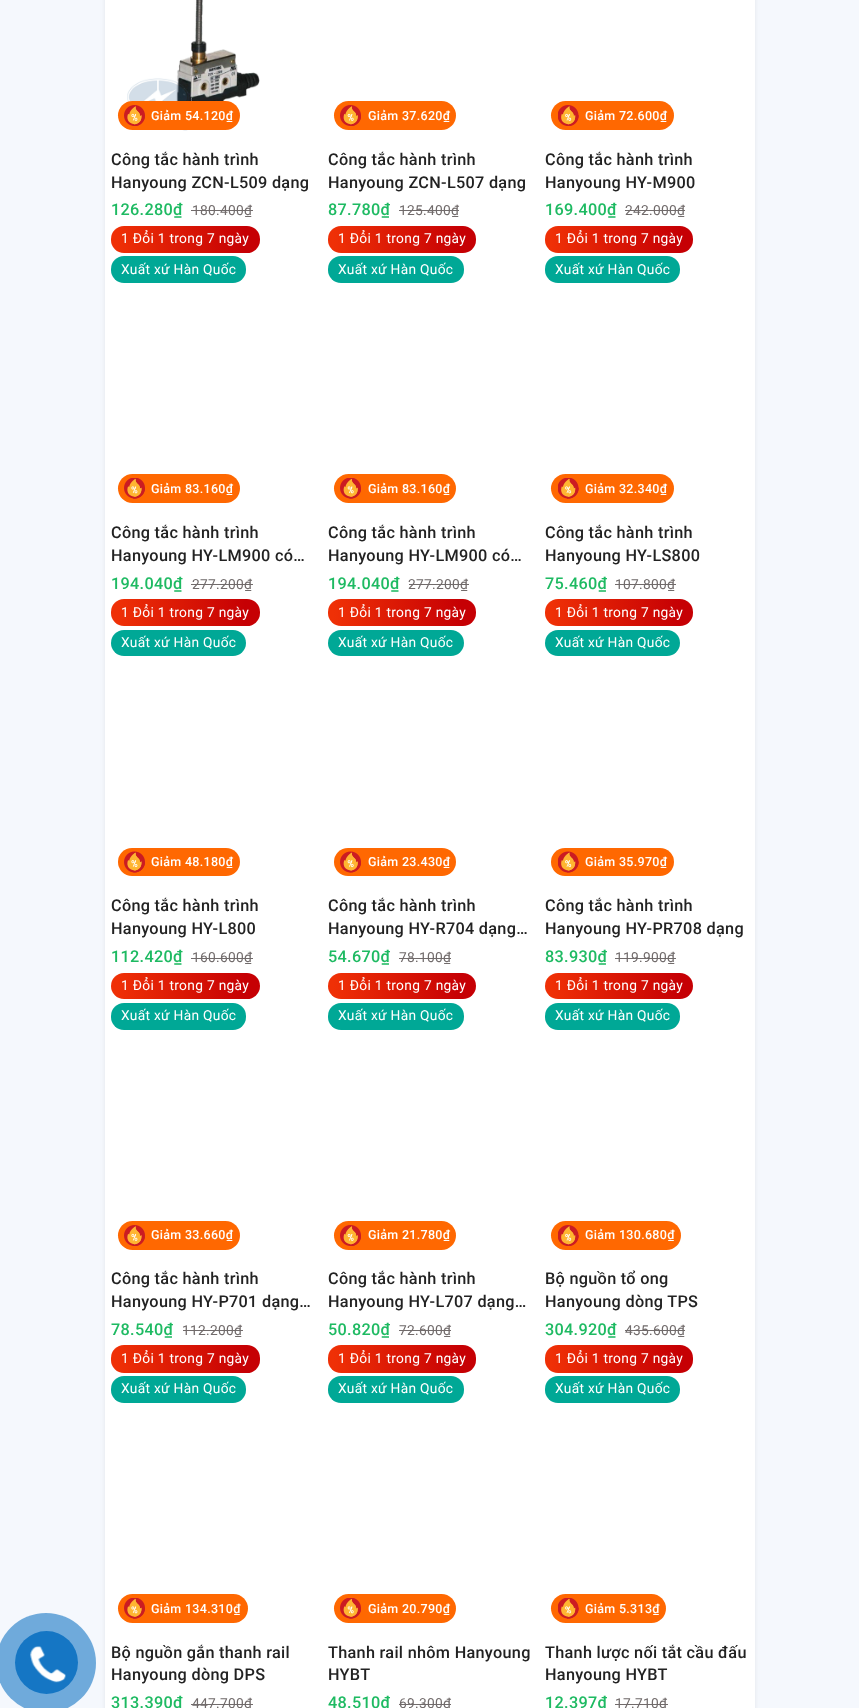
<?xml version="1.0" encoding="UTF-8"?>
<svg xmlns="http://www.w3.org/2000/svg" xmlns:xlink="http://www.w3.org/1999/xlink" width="859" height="1708">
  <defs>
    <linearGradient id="g1" gradientUnits="userSpaceOnUse" x1="111" y1="239" x2="260" y2="239"><stop offset="0.04" stop-color="#ef3006" /><stop offset="0.9" stop-color="#c60004" /></linearGradient>
    <linearGradient id="g2" gradientUnits="userSpaceOnUse" x1="328" y1="239" x2="476" y2="239"><stop offset="0.04" stop-color="#ef3006" /><stop offset="0.9" stop-color="#c60004" /></linearGradient>
    <linearGradient id="g3" gradientUnits="userSpaceOnUse" x1="545" y1="239" x2="693" y2="239"><stop offset="0.04" stop-color="#ef3006" /><stop offset="0.9" stop-color="#c60004" /></linearGradient>
    <linearGradient id="g4" gradientUnits="userSpaceOnUse" x1="111" y1="613" x2="260" y2="613"><stop offset="0.04" stop-color="#ef3006" /><stop offset="0.9" stop-color="#c60004" /></linearGradient>
    <linearGradient id="g5" gradientUnits="userSpaceOnUse" x1="328" y1="613" x2="476" y2="613"><stop offset="0.04" stop-color="#ef3006" /><stop offset="0.9" stop-color="#c60004" /></linearGradient>
    <linearGradient id="g6" gradientUnits="userSpaceOnUse" x1="545" y1="613" x2="693" y2="613"><stop offset="0.04" stop-color="#ef3006" /><stop offset="0.9" stop-color="#c60004" /></linearGradient>
    <linearGradient id="g7" gradientUnits="userSpaceOnUse" x1="111" y1="986" x2="260" y2="986"><stop offset="0.04" stop-color="#ef3006" /><stop offset="0.9" stop-color="#c60004" /></linearGradient>
    <linearGradient id="g8" gradientUnits="userSpaceOnUse" x1="328" y1="986" x2="476" y2="986"><stop offset="0.04" stop-color="#ef3006" /><stop offset="0.9" stop-color="#c60004" /></linearGradient>
    <linearGradient id="g9" gradientUnits="userSpaceOnUse" x1="545" y1="986" x2="693" y2="986"><stop offset="0.04" stop-color="#ef3006" /><stop offset="0.9" stop-color="#c60004" /></linearGradient>
    <linearGradient id="g10" gradientUnits="userSpaceOnUse" x1="111" y1="1359" x2="260" y2="1359"><stop offset="0.04" stop-color="#ef3006" /><stop offset="0.9" stop-color="#c60004" /></linearGradient>
    <linearGradient id="g11" gradientUnits="userSpaceOnUse" x1="328" y1="1359" x2="476" y2="1359"><stop offset="0.04" stop-color="#ef3006" /><stop offset="0.9" stop-color="#c60004" /></linearGradient>
    <linearGradient id="g12" gradientUnits="userSpaceOnUse" x1="545" y1="1359" x2="693" y2="1359"><stop offset="0.04" stop-color="#ef3006" /><stop offset="0.9" stop-color="#c60004" /></linearGradient>
  </defs>
  <rect width="100%" height="100%" fill="#f5f8fd" />
  <circle cx="46.5" cy="1662.5" r="31.5" fill="#1576c4" />
  <circle cx="46" cy="1663" r="50" fill="#1576c4" fill-opacity="0.6" />
  <image x="30" y="1646" width="36" height="37" xlink:href="image1.png" />
  <rect x="105" y="-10" width="650" height="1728" rx="2.5" fill="#000000" fill-opacity="0.07" filter="blur(2.5px)" />
  <rect x="105" width="650" height="1708" fill="#ffffff" />
  <image x="127" y="0" width="133" height="131" xlink:href="image2.png" />
  <rect x="118" y="101" width="122" height="29" rx="14.5" fill="#ff6801" />
  <image x="124" y="105" width="21" height="21" xlink:href="image3.png" />
  <rect x="191" y="210" width="62" height="1" fill="#716b6b" />
  <rect x="111" y="226" width="149" height="27" rx="13" fill="url(#g1)" />
  <rect x="111" y="256" width="135" height="27" rx="13" fill="#00a896" />
  <rect x="334" y="101" width="122" height="29" rx="14.5" fill="#ff6801" />
  <image x="340" y="105" width="21" height="21" xlink:href="image4.png" />
  <rect x="399" y="210" width="60" height="1" fill="#716b6b" />
  <rect x="328" y="226" width="148" height="27" rx="13" fill="url(#g2)" />
  <rect x="328" y="256" width="136" height="27" rx="13" fill="#00a896" />
  <rect x="551" y="101" width="123" height="29" rx="14.5" fill="#ff6801" />
  <image x="558" y="105" width="21" height="21" xlink:href="image5.png" />
  <rect x="625" y="210" width="60" height="1" fill="#716b6b" />
  <rect x="545" y="226" width="148" height="27" rx="13" fill="url(#g3)" />
  <rect x="545" y="256" width="135" height="27" rx="13" fill="#00a896" />
  <rect x="118" y="474" width="122" height="29" rx="14.5" fill="#ff6801" />
  <image x="124" y="478" width="21" height="21" xlink:href="image6.png" />
  <rect x="191" y="584" width="62" height="1" fill="#716b6b" />
  <rect x="111" y="599" width="149" height="27" rx="13" fill="url(#g4)" />
  <rect x="111" y="630" width="135" height="26" rx="13" fill="#00a896" />
  <rect x="334" y="474" width="122" height="29" rx="14.5" fill="#ff6801" />
  <image x="340" y="478" width="21" height="21" xlink:href="image7.png" />
  <rect x="409" y="584" width="60" height="1" fill="#716b6b" />
  <rect x="328" y="599" width="148" height="27" rx="13" fill="url(#g5)" />
  <rect x="328" y="630" width="136" height="26" rx="13" fill="#00a896" />
  <rect x="551" y="474" width="123" height="29" rx="14.5" fill="#ff6801" />
  <image x="558" y="478" width="21" height="21" xlink:href="image8.png" />
  <rect x="615" y="584" width="61" height="1" fill="#716b6b" />
  <rect x="545" y="599" width="148" height="27" rx="13" fill="url(#g6)" />
  <rect x="545" y="630" width="135" height="26" rx="13" fill="#00a896" />
  <rect x="118" y="848" width="122" height="28" rx="14" fill="#ff6801" />
  <image x="124" y="851" width="21" height="22" xlink:href="image9.png" />
  <rect x="191" y="958" width="62" height="1" fill="#716b6b" />
  <rect x="111" y="973" width="149" height="26" rx="13" fill="url(#g7)" />
  <rect x="111" y="1003" width="135" height="27" rx="13" fill="#00a896" />
  <rect x="334" y="848" width="122" height="28" rx="14" fill="#ff6801" />
  <image x="340" y="851" width="21" height="22" xlink:href="image10.png" />
  <rect x="399" y="958" width="52" height="1" fill="#716b6b" />
  <rect x="328" y="973" width="148" height="26" rx="13" fill="url(#g8)" />
  <rect x="328" y="1003" width="136" height="27" rx="13" fill="#00a896" />
  <rect x="551" y="848" width="123" height="28" rx="14" fill="#ff6801" />
  <image x="558" y="851" width="21" height="22" xlink:href="image11.png" />
  <rect x="615" y="958" width="61" height="1" fill="#716b6b" />
  <rect x="545" y="973" width="148" height="26" rx="13" fill="url(#g9)" />
  <rect x="545" y="1003" width="135" height="27" rx="13" fill="#00a896" />
  <rect x="118" y="1221" width="122" height="29" rx="14.5" fill="#ff6801" />
  <image x="124" y="1225" width="21" height="21" xlink:href="image3.png" />
  <rect x="183" y="1330" width="60" height="1" fill="#716b6b" />
  <rect x="111" y="1345" width="149" height="28" rx="13" fill="url(#g10)" />
  <rect x="111" y="1376" width="135" height="27" rx="13" fill="#00a896" />
  <rect x="334" y="1221" width="122" height="29" rx="14.5" fill="#ff6801" />
  <image x="340" y="1225" width="21" height="21" xlink:href="image4.png" />
  <rect x="399" y="1330" width="52" height="1" fill="#716b6b" />
  <rect x="328" y="1345" width="148" height="28" rx="13" fill="url(#g11)" />
  <rect x="328" y="1376" width="136" height="27" rx="13" fill="#00a896" />
  <rect x="551" y="1221" width="130" height="29" rx="14.5" fill="#ff6801" />
  <image x="558" y="1225" width="21" height="21" xlink:href="image5.png" />
  <rect x="625" y="1330" width="60" height="1" fill="#716b6b" />
  <rect x="545" y="1345" width="148" height="28" rx="13" fill="url(#g12)" />
  <rect x="545" y="1376" width="135" height="27" rx="13" fill="#00a896" />
  <rect x="118" y="1594" width="130" height="29" rx="14.5" fill="#ff6801" />
  <image x="124" y="1598" width="21" height="21" xlink:href="image6.png" />
  <rect x="191" y="1704" width="62" height="1" fill="#716b6b" />
  <rect x="334" y="1594" width="122" height="29" rx="14.5" fill="#ff6801" />
  <image x="340" y="1598" width="21" height="21" xlink:href="image7.png" />
  <rect x="399" y="1704" width="52" height="1" fill="#716b6b" />
  <rect x="551" y="1594" width="115" height="29" rx="14.5" fill="#ff6801" />
  <image x="558" y="1598" width="21" height="21" xlink:href="image8.png" />
  <rect x="615" y="1704" width="53" height="1" fill="#716b6b" />
  <text x="151" y="120" style="font-family: Roboto; font-size: 12.5px; font-weight: 500; letter-spacing: 0.3px; fill: #ffffff">Giảm 54.120₫</text>
  <text x="111" y="165" style="font-family: Roboto; font-size: 16.25px; font-weight: 500; letter-spacing: 0.3px; fill: #222222">Công tắc hành trình</text>
  <text x="111" y="188" style="font-family: Roboto; font-size: 16.25px; font-weight: 500; letter-spacing: 0.3px; fill: #222222">Hanyoung ZCN-L509 dạng</text>
  <text x="111" y="215" style="font-family: Roboto; font-size: 16.25px; font-weight: 500; letter-spacing: 0.3px; fill: #1eba62">126.280₫</text>
  <text x="192" y="215" style="font-family: Roboto; font-size: 13.75px; letter-spacing: 0.3px; fill: #716b6b">180.400₫</text>
  <text x="121" y="243" style="font-family: Roboto; font-size: 13.75px; letter-spacing: 0.3px; fill: #ffffff">1 Đổi 1 trong 7 ngày</text>
  <text x="121" y="274" style="font-family: Roboto; font-size: 13.75px; letter-spacing: 0.3px; fill: #ffffff">Xuất xứ Hàn Quốc</text>
  <text x="368" y="120" style="font-family: Roboto; font-size: 12.5px; font-weight: 500; letter-spacing: 0.3px; fill: #ffffff">Giảm 37.620₫</text>
  <text x="328" y="165" style="font-family: Roboto; font-size: 16.25px; font-weight: 500; letter-spacing: 0.3px; fill: #222222">Công tắc hành trình</text>
  <text x="328" y="188" style="font-family: Roboto; font-size: 16.25px; font-weight: 500; letter-spacing: 0.3px; fill: #222222">Hanyoung ZCN-L507 dạng</text>
  <text x="328" y="215" style="font-family: Roboto; font-size: 16.25px; font-weight: 500; letter-spacing: 0.3px; fill: #1eba62">87.780₫</text>
  <text x="399" y="215" style="font-family: Roboto; font-size: 13.75px; letter-spacing: 0.3px; fill: #716b6b">125.400₫</text>
  <text x="338" y="243" style="font-family: Roboto; font-size: 13.75px; letter-spacing: 0.3px; fill: #ffffff">1 Đổi 1 trong 7 ngày</text>
  <text x="338" y="274" style="font-family: Roboto; font-size: 13.75px; letter-spacing: 0.3px; fill: #ffffff">Xuất xứ Hàn Quốc</text>
  <text x="585" y="120" style="font-family: Roboto; font-size: 12.5px; font-weight: 500; letter-spacing: 0.3px; fill: #ffffff">Giảm 72.600₫</text>
  <text x="545" y="165" style="font-family: Roboto; font-size: 16.25px; font-weight: 500; letter-spacing: 0.3px; fill: #222222">Công tắc hành trình</text>
  <text x="545" y="188" style="font-family: Roboto; font-size: 16.25px; font-weight: 500; letter-spacing: 0.3px; fill: #222222">Hanyoung HY-M900</text>
  <text x="545" y="215" style="font-family: Roboto; font-size: 16.25px; font-weight: 500; letter-spacing: 0.3px; fill: #1eba62">169.400₫</text>
  <text x="625" y="215" style="font-family: Roboto; font-size: 13.75px; letter-spacing: 0.3px; fill: #716b6b">242.000₫</text>
  <text x="555" y="243" style="font-family: Roboto; font-size: 13.75px; letter-spacing: 0.3px; fill: #ffffff">1 Đổi 1 trong 7 ngày</text>
  <text x="555" y="274" style="font-family: Roboto; font-size: 13.75px; letter-spacing: 0.3px; fill: #ffffff">Xuất xứ Hàn Quốc</text>
  <text x="151" y="493" style="font-family: Roboto; font-size: 12.5px; font-weight: 500; letter-spacing: 0.3px; fill: #ffffff">Giảm 83.160₫</text>
  <text x="111" y="538" style="font-family: Roboto; font-size: 16.25px; font-weight: 500; letter-spacing: 0.3px; fill: #222222">Công tắc hành trình</text>
  <text x="111" y="561" style="font-family: Roboto; font-size: 16.25px; font-weight: 500; letter-spacing: 0.3px; fill: #222222">Hanyoung HY-LM900 có…</text>
  <text x="111" y="589" style="font-family: Roboto; font-size: 16.25px; font-weight: 500; letter-spacing: 0.3px; fill: #1eba62">194.040₫</text>
  <text x="192" y="589" style="font-family: Roboto; font-size: 13.75px; letter-spacing: 0.3px; fill: #716b6b">277.200₫</text>
  <text x="121" y="617" style="font-family: Roboto; font-size: 13.75px; letter-spacing: 0.3px; fill: #ffffff">1 Đổi 1 trong 7 ngày</text>
  <text x="121" y="647" style="font-family: Roboto; font-size: 13.75px; letter-spacing: 0.3px; fill: #ffffff">Xuất xứ Hàn Quốc</text>
  <text x="368" y="493" style="font-family: Roboto; font-size: 12.5px; font-weight: 500; letter-spacing: 0.3px; fill: #ffffff">Giảm 83.160₫</text>
  <text x="328" y="538" style="font-family: Roboto; font-size: 16.25px; font-weight: 500; letter-spacing: 0.3px; fill: #222222">Công tắc hành trình</text>
  <text x="328" y="561" style="font-family: Roboto; font-size: 16.25px; font-weight: 500; letter-spacing: 0.3px; fill: #222222">Hanyoung HY-LM900 có…</text>
  <text x="328" y="589" style="font-family: Roboto; font-size: 16.25px; font-weight: 500; letter-spacing: 0.3px; fill: #1eba62">194.040₫</text>
  <text x="408" y="589" style="font-family: Roboto; font-size: 13.75px; letter-spacing: 0.3px; fill: #716b6b">277.200₫</text>
  <text x="338" y="617" style="font-family: Roboto; font-size: 13.75px; letter-spacing: 0.3px; fill: #ffffff">1 Đổi 1 trong 7 ngày</text>
  <text x="338" y="647" style="font-family: Roboto; font-size: 13.75px; letter-spacing: 0.3px; fill: #ffffff">Xuất xứ Hàn Quốc</text>
  <text x="585" y="493" style="font-family: Roboto; font-size: 12.5px; font-weight: 500; letter-spacing: 0.3px; fill: #ffffff">Giảm 32.340₫</text>
  <text x="545" y="538" style="font-family: Roboto; font-size: 16.25px; font-weight: 500; letter-spacing: 0.3px; fill: #222222">Công tắc hành trình</text>
  <text x="545" y="561" style="font-family: Roboto; font-size: 16.25px; font-weight: 500; letter-spacing: 0.3px; fill: #222222">Hanyoung HY-LS800</text>
  <text x="545" y="589" style="font-family: Roboto; font-size: 16.25px; font-weight: 500; letter-spacing: 0.3px; fill: #1eba62">75.460₫</text>
  <text x="615" y="589" style="font-family: Roboto; font-size: 13.75px; letter-spacing: 0.3px; fill: #716b6b">107.800₫</text>
  <text x="555" y="617" style="font-family: Roboto; font-size: 13.75px; letter-spacing: 0.3px; fill: #ffffff">1 Đổi 1 trong 7 ngày</text>
  <text x="555" y="647" style="font-family: Roboto; font-size: 13.75px; letter-spacing: 0.3px; fill: #ffffff">Xuất xứ Hàn Quốc</text>
  <text x="151" y="866" style="font-family: Roboto; font-size: 12.5px; font-weight: 500; letter-spacing: 0.3px; fill: #ffffff">Giảm 48.180₫</text>
  <text x="111" y="911" style="font-family: Roboto; font-size: 16.25px; font-weight: 500; letter-spacing: 0.3px; fill: #222222">Công tắc hành trình</text>
  <text x="111" y="934" style="font-family: Roboto; font-size: 16.25px; font-weight: 500; letter-spacing: 0.3px; fill: #222222">Hanyoung HY-L800</text>
  <text x="111" y="962" style="font-family: Roboto; font-size: 16.25px; font-weight: 500; letter-spacing: 0.3px; fill: #1eba62">112.420₫</text>
  <text x="192" y="962" style="font-family: Roboto; font-size: 13.75px; letter-spacing: 0.3px; fill: #716b6b">160.600₫</text>
  <text x="121" y="990" style="font-family: Roboto; font-size: 13.75px; letter-spacing: 0.3px; fill: #ffffff">1 Đổi 1 trong 7 ngày</text>
  <text x="121" y="1020" style="font-family: Roboto; font-size: 13.75px; letter-spacing: 0.3px; fill: #ffffff">Xuất xứ Hàn Quốc</text>
  <text x="368" y="866" style="font-family: Roboto; font-size: 12.5px; font-weight: 500; letter-spacing: 0.3px; fill: #ffffff">Giảm 23.430₫</text>
  <text x="328" y="911" style="font-family: Roboto; font-size: 16.25px; font-weight: 500; letter-spacing: 0.3px; fill: #222222">Công tắc hành trình</text>
  <text x="328" y="934" style="font-family: Roboto; font-size: 16.25px; font-weight: 500; letter-spacing: 0.3px; fill: #222222">Hanyoung HY-R704 dạng…</text>
  <text x="328" y="962" style="font-family: Roboto; font-size: 16.25px; font-weight: 500; letter-spacing: 0.3px; fill: #1eba62">54.670₫</text>
  <text x="399" y="962" style="font-family: Roboto; font-size: 13.75px; letter-spacing: 0.3px; fill: #716b6b">78.100₫</text>
  <text x="338" y="990" style="font-family: Roboto; font-size: 13.75px; letter-spacing: 0.3px; fill: #ffffff">1 Đổi 1 trong 7 ngày</text>
  <text x="338" y="1020" style="font-family: Roboto; font-size: 13.75px; letter-spacing: 0.3px; fill: #ffffff">Xuất xứ Hàn Quốc</text>
  <text x="585" y="866" style="font-family: Roboto; font-size: 12.5px; font-weight: 500; letter-spacing: 0.3px; fill: #ffffff">Giảm 35.970₫</text>
  <text x="545" y="911" style="font-family: Roboto; font-size: 16.25px; font-weight: 500; letter-spacing: 0.3px; fill: #222222">Công tắc hành trình</text>
  <text x="545" y="934" style="font-family: Roboto; font-size: 16.25px; font-weight: 500; letter-spacing: 0.3px; fill: #222222">Hanyoung HY-PR708 dạng</text>
  <text x="545" y="962" style="font-family: Roboto; font-size: 16.25px; font-weight: 500; letter-spacing: 0.3px; fill: #1eba62">83.930₫</text>
  <text x="615" y="962" style="font-family: Roboto; font-size: 13.75px; letter-spacing: 0.3px; fill: #716b6b">119.900₫</text>
  <text x="555" y="990" style="font-family: Roboto; font-size: 13.75px; letter-spacing: 0.3px; fill: #ffffff">1 Đổi 1 trong 7 ngày</text>
  <text x="555" y="1020" style="font-family: Roboto; font-size: 13.75px; letter-spacing: 0.3px; fill: #ffffff">Xuất xứ Hàn Quốc</text>
  <text x="151" y="1239" style="font-family: Roboto; font-size: 12.5px; font-weight: 500; letter-spacing: 0.3px; fill: #ffffff">Giảm 33.660₫</text>
  <text x="111" y="1284" style="font-family: Roboto; font-size: 16.25px; font-weight: 500; letter-spacing: 0.3px; fill: #222222">Công tắc hành trình</text>
  <text x="111" y="1307" style="font-family: Roboto; font-size: 16.25px; font-weight: 500; letter-spacing: 0.3px; fill: #222222">Hanyoung HY-P701 dạng…</text>
  <text x="111" y="1335" style="font-family: Roboto; font-size: 16.25px; font-weight: 500; letter-spacing: 0.3px; fill: #1eba62">78.540₫</text>
  <text x="182" y="1335" style="font-family: Roboto; font-size: 13.75px; letter-spacing: 0.3px; fill: #716b6b">112.200₫</text>
  <text x="121" y="1363" style="font-family: Roboto; font-size: 13.75px; letter-spacing: 0.3px; fill: #ffffff">1 Đổi 1 trong 7 ngày</text>
  <text x="121" y="1393" style="font-family: Roboto; font-size: 13.75px; letter-spacing: 0.3px; fill: #ffffff">Xuất xứ Hàn Quốc</text>
  <text x="368" y="1239" style="font-family: Roboto; font-size: 12.5px; font-weight: 500; letter-spacing: 0.3px; fill: #ffffff">Giảm 21.780₫</text>
  <text x="328" y="1284" style="font-family: Roboto; font-size: 16.25px; font-weight: 500; letter-spacing: 0.3px; fill: #222222">Công tắc hành trình</text>
  <text x="328" y="1307" style="font-family: Roboto; font-size: 16.25px; font-weight: 500; letter-spacing: 0.3px; fill: #222222">Hanyoung HY-L707 dạng…</text>
  <text x="328" y="1335" style="font-family: Roboto; font-size: 16.25px; font-weight: 500; letter-spacing: 0.3px; fill: #1eba62">50.820₫</text>
  <text x="399" y="1335" style="font-family: Roboto; font-size: 13.75px; letter-spacing: 0.3px; fill: #716b6b">72.600₫</text>
  <text x="338" y="1363" style="font-family: Roboto; font-size: 13.75px; letter-spacing: 0.3px; fill: #ffffff">1 Đổi 1 trong 7 ngày</text>
  <text x="338" y="1393" style="font-family: Roboto; font-size: 13.75px; letter-spacing: 0.3px; fill: #ffffff">Xuất xứ Hàn Quốc</text>
  <text x="585" y="1239" style="font-family: Roboto; font-size: 12.5px; font-weight: 500; letter-spacing: 0.3px; fill: #ffffff">Giảm 130.680₫</text>
  <text x="545" y="1284" style="font-family: Roboto; font-size: 16.25px; font-weight: 500; letter-spacing: 0.3px; fill: #222222">Bộ nguồn tổ ong</text>
  <text x="545" y="1307" style="font-family: Roboto; font-size: 16.25px; font-weight: 500; letter-spacing: 0.3px; fill: #222222">Hanyoung dòng TPS</text>
  <text x="545" y="1335" style="font-family: Roboto; font-size: 16.25px; font-weight: 500; letter-spacing: 0.3px; fill: #1eba62">304.920₫</text>
  <text x="625" y="1335" style="font-family: Roboto; font-size: 13.75px; letter-spacing: 0.3px; fill: #716b6b">435.600₫</text>
  <text x="555" y="1363" style="font-family: Roboto; font-size: 13.75px; letter-spacing: 0.3px; fill: #ffffff">1 Đổi 1 trong 7 ngày</text>
  <text x="555" y="1393" style="font-family: Roboto; font-size: 13.75px; letter-spacing: 0.3px; fill: #ffffff">Xuất xứ Hàn Quốc</text>
  <text x="151" y="1613" style="font-family: Roboto; font-size: 12.5px; font-weight: 500; letter-spacing: 0.3px; fill: #ffffff">Giảm 134.310₫</text>
  <text x="111" y="1658" style="font-family: Roboto; font-size: 16.25px; font-weight: 500; letter-spacing: 0.3px; fill: #222222">Bộ nguồn gắn thanh rail</text>
  <text x="111" y="1680" style="font-family: Roboto; font-size: 16.25px; font-weight: 500; letter-spacing: 0.3px; fill: #222222">Hanyoung dòng DPS</text>
  <text x="111" y="1708" style="font-family: Roboto; font-size: 16.25px; font-weight: 500; letter-spacing: 0.3px; fill: #1eba62">313.390₫</text>
  <text x="192" y="1708" style="font-family: Roboto; font-size: 13.75px; letter-spacing: 0.3px; fill: #716b6b">447.700₫</text>
  <text x="368" y="1613" style="font-family: Roboto; font-size: 12.5px; font-weight: 500; letter-spacing: 0.3px; fill: #ffffff">Giảm 20.790₫</text>
  <text x="328" y="1658" style="font-family: Roboto; font-size: 16.25px; font-weight: 500; letter-spacing: 0.3px; fill: #222222">Thanh rail nhôm Hanyoung</text>
  <text x="328" y="1680" style="font-family: Roboto; font-size: 16.25px; font-weight: 500; letter-spacing: 0.3px; fill: #222222">HYBT</text>
  <text x="328" y="1708" style="font-family: Roboto; font-size: 16.25px; font-weight: 500; letter-spacing: 0.3px; fill: #1eba62">48.510₫</text>
  <text x="399" y="1708" style="font-family: Roboto; font-size: 13.75px; letter-spacing: 0.3px; fill: #716b6b">69.300₫</text>
  <text x="585" y="1613" style="font-family: Roboto; font-size: 12.5px; font-weight: 500; letter-spacing: 0.3px; fill: #ffffff">Giảm 5.313₫</text>
  <text x="545" y="1658" style="font-family: Roboto; font-size: 16.25px; font-weight: 500; letter-spacing: 0.3px; fill: #222222">Thanh lược nối tắt cầu đấu</text>
  <text x="545" y="1680" style="font-family: Roboto; font-size: 16.25px; font-weight: 500; letter-spacing: 0.3px; fill: #222222">Hanyoung HYBT</text>
  <text x="545" y="1708" style="font-family: Roboto; font-size: 16.25px; font-weight: 500; letter-spacing: 0.3px; fill: #1eba62">12.397₫</text>
  <text x="615" y="1708" style="font-family: Roboto; font-size: 13.75px; letter-spacing: 0.3px; fill: #716b6b">17.710₫</text>
</svg>
